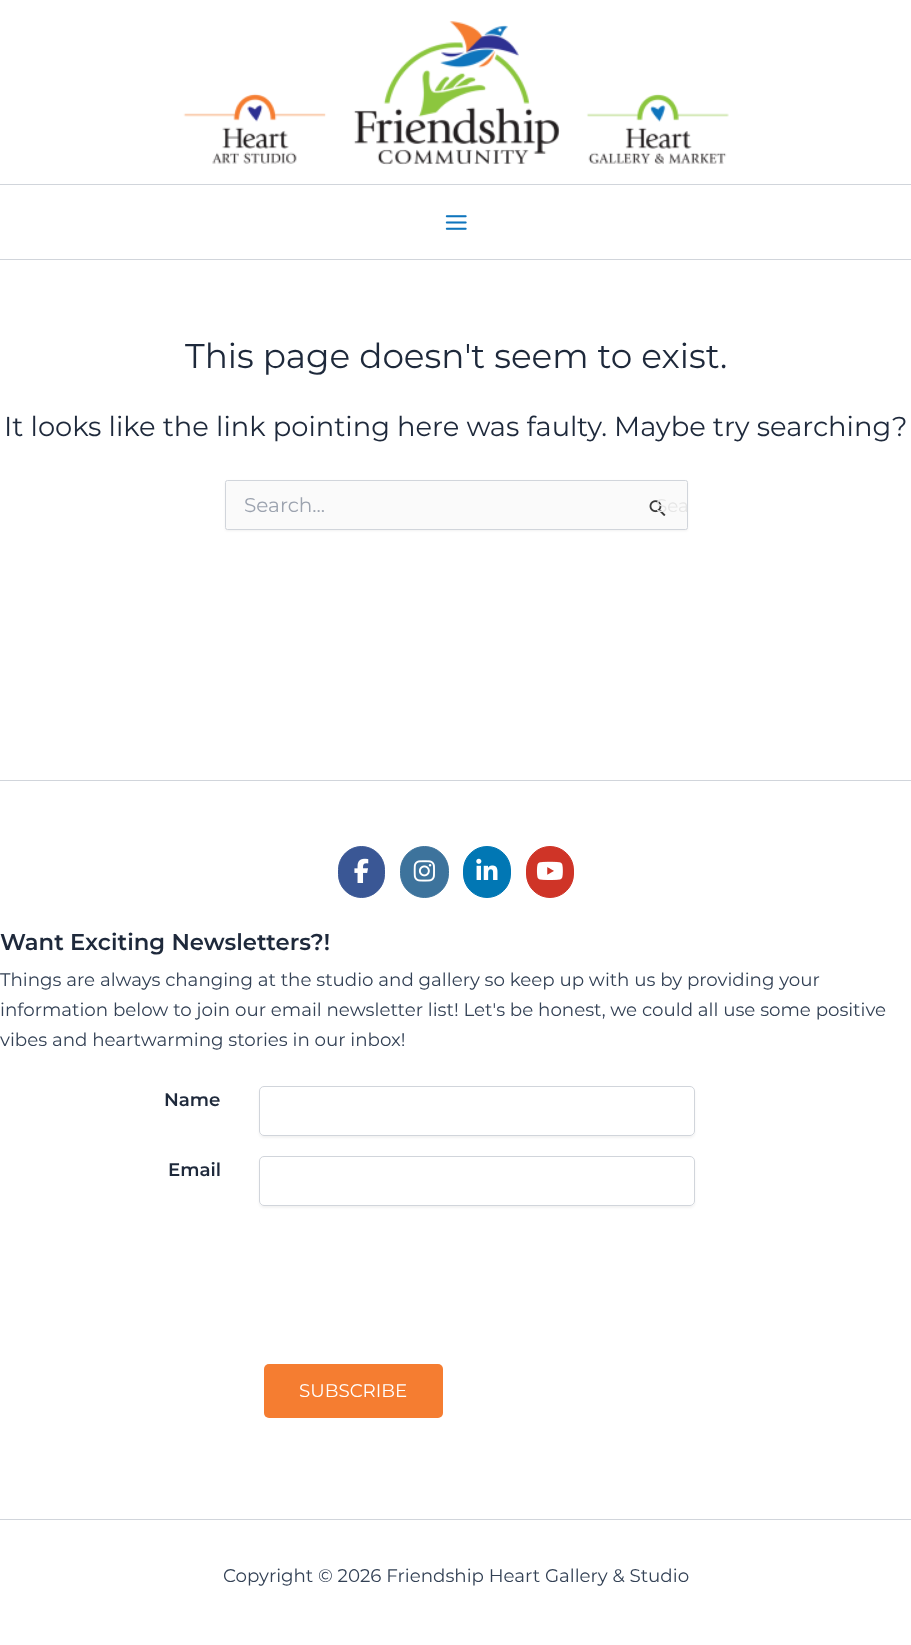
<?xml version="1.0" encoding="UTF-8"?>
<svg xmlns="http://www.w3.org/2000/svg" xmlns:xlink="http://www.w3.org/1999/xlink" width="911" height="1645">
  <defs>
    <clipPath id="clip1"><path d="M 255 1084 h 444 v 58 h -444 z m 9 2 h 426 c 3 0 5 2 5 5 v 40 c 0 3 -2 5 -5 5 h -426 c -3 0 -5 -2 -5 -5 v -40 c 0 -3 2 -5 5 -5 z" clip-rule="evenodd" /></clipPath>
    <clipPath id="clip2"><path d="M 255 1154 h 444 v 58 h -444 z m 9 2 h 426 c 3 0 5 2 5 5 v 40 c 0 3 -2 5 -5 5 h -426 c -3 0 -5 -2 -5 -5 v -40 c 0 -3 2 -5 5 -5 z" clip-rule="evenodd" /></clipPath>
  </defs>
  <rect width="100%" height="100%" fill="#ffffff" />
  <rect y="184" width="911" height="1" fill="#d1d5db" />
  <image x="183" y="21" width="546" height="144" xlink:href="image1.png" />
  <rect y="259" width="911" height="1" fill="#d1d5db" />
  <image x="445" y="215" width="22" height="15" xlink:href="image2.png" />
  <rect x="225" y="481" width="463" height="50" rx="2.5" fill="#000000" fill-opacity="0.05" filter="blur(1px)" />
  <rect x="225.5" y="480.5" width="462" height="49" rx="2" fill="#fafafa" stroke="#d1d5db" />
  <image x="649" y="500" width="17" height="16" xlink:href="image3.png" />
  <rect y="780" width="911" height="1" fill="#d1d5db" />
  <rect x="338.5" y="846.5" width="46" height="51" rx="23" fill="#3a5795" stroke="#3a5795" />
  <image x="354" y="858" width="15" height="25" xlink:href="image4.png" />
  <rect x="400.5" y="846.5" width="48" height="51" rx="24" fill="#3d739c" stroke="#3d739c" />
  <image x="413" y="860" width="22" height="22" xlink:href="image5.png" />
  <rect x="463.5" y="846.5" width="47" height="51" rx="23.5" fill="#0177b4" stroke="#0177b4" />
  <image x="476" y="858" width="22" height="22" xlink:href="image6.png" />
  <rect x="526.5" y="846.5" width="47" height="51" rx="23.5" fill="#cf3427" stroke="#cf3427" />
  <image x="536" y="861" width="27" height="19" xlink:href="image7.png" />
  <g clip-path="url(#clip1)">
    <rect x="259" y="1088" width="436" height="50" rx="5" fill="#000000" fill-opacity="0.05" filter="blur(1px)" />
  </g>
  <rect x="259.5" y="1086.5" width="435" height="49" rx="4.5" fill="none" stroke="#d1d5db" />
  <g clip-path="url(#clip2)">
    <rect x="259" y="1158" width="436" height="50" rx="5" fill="#000000" fill-opacity="0.05" filter="blur(1px)" />
  </g>
  <rect x="259.5" y="1156.5" width="435" height="49" rx="4.5" fill="none" stroke="#d1d5db" />
  <rect x="264" y="1364" width="179" height="54" rx="5" fill="#f57d31" />
  <rect y="1519" width="911" height="1" fill="#d1d5db" />
  <text x="185" y="368" style="font-family: Montserrat; font-size: 34.25px; fill: #1e293b">This page doesn't seem to exist.</text>
  <text x="4" y="436" style="font-family: Montserrat; font-size: 27.35px; fill: #1e293b">It looks like the link pointing here was faulty. Maybe try searching?</text>
  <text x="244" y="512" style="font-family: Montserrat; font-size: 20px; fill: #9ca3af">Search...</text>
  <text x="656" y="512" style="font-family: Montserrat; font-size: 18.25px; fill: #e6e6e6">Sea</text>
  <text x="0" y="950" style="font-family: Montserrat; font-size: 22.75px; font-weight: 600; fill: #1e293b">Want Exciting Newsletters?!</text>
  <text x="0" y="986" style="font-family: Montserrat; font-size: 18.25px; fill: #334155">Things are always changing at the studio and gallery so keep up with us by providing your</text>
  <text x="0" y="1016" style="font-family: Montserrat; font-size: 18.25px; fill: #334155">information below to join our email newsletter list! Let's be honest, we could all use some positive</text>
  <text x="0" y="1046" style="font-family: Montserrat; font-size: 18.25px; fill: #334155">vibes and heartwarming stories in our inbox!</text>
  <text x="164" y="1106" style="font-family: Montserrat; font-size: 18.25px; font-weight: 600; fill: #1e293b">Name</text>
  <text x="168" y="1176" style="font-family: Montserrat; font-size: 18.25px; font-weight: 600; fill: #1e293b">Email</text>
  <text x="299" y="1397" style="font-family: Montserrat; font-size: 18.25px; fill: #ffffff">SUBSCRIBE</text>
  <text x="223" y="1582" style="font-family: Montserrat; font-size: 18.25px; fill: #334155">Copyright © 2026 Friendship Heart Gallery &amp; Studio</text>
</svg>
